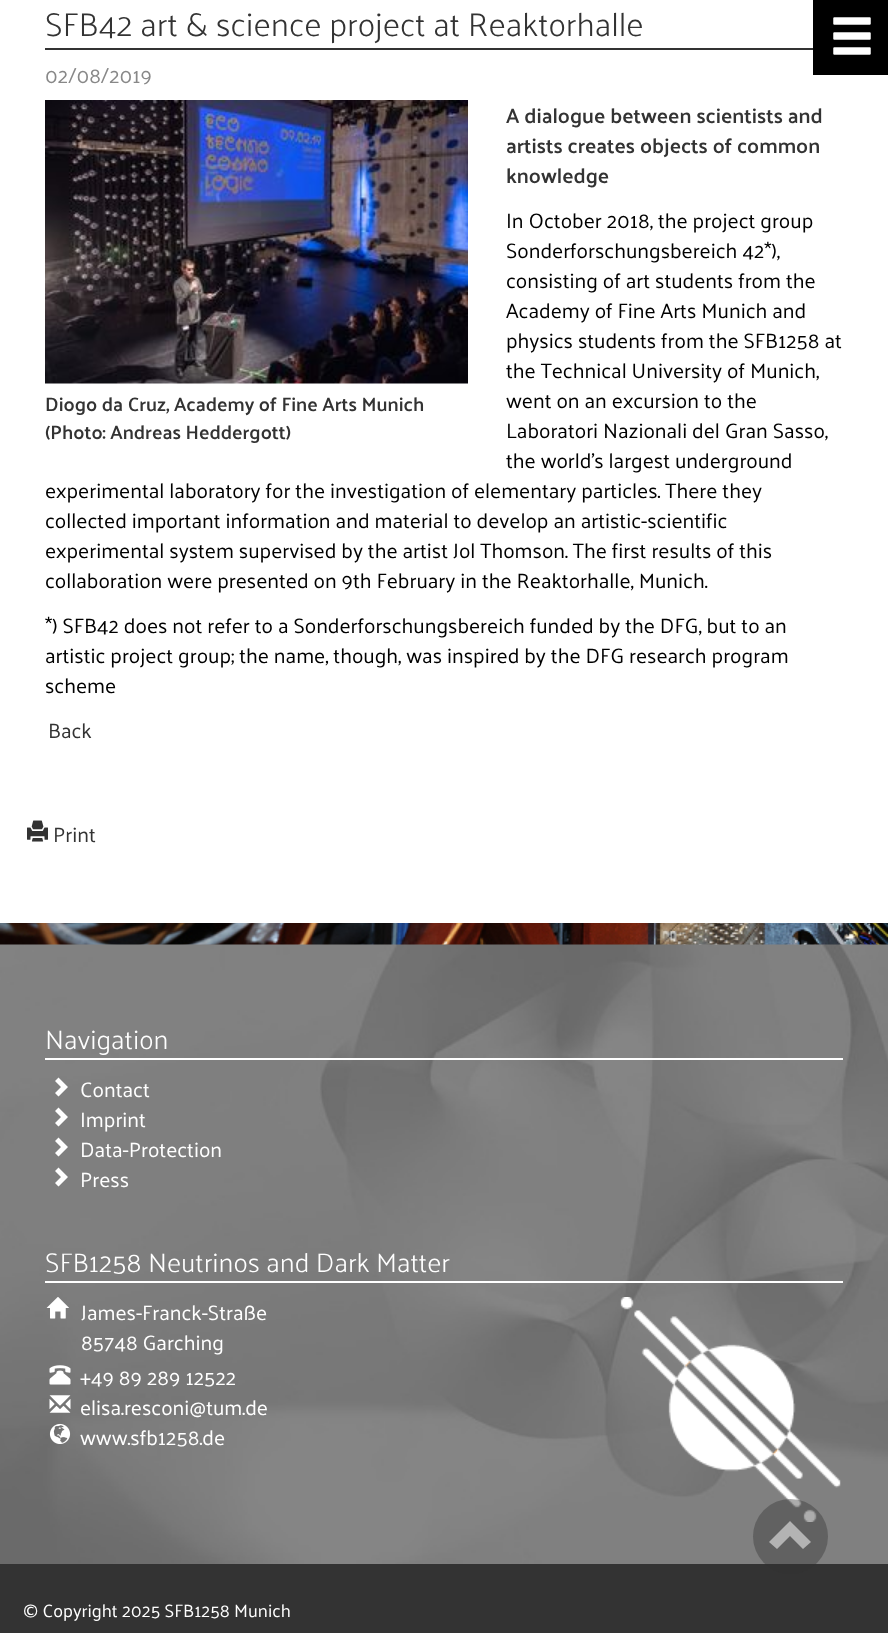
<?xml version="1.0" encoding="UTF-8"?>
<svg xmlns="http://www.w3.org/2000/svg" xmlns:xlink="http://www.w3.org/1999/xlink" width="888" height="1633">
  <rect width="100%" height="100%" fill="#333333" />
  <image x="0" y="923" width="888" height="22" xlink:href="image1.png" />
  <rect width="888" height="923" fill="#ffffff" />
  <rect x="45" y="48" width="768" height="2" fill="#333333" />
  <image x="45" y="100" width="423" height="284" xlink:href="image2.png" />
  <image x="27" y="820" width="21" height="22" xlink:href="image3.png" />
  <rect x="813" width="75" height="75" fill="#000000" />
  <image x="833" y="17" width="38" height="38" xlink:href="image4.png" />
  <image x="0" y="944" width="888" height="620" xlink:href="image5.png" />
  <rect x="45" y="1058" width="798" height="2" fill="#ffffff" />
  <path d="M 68 1087 l -9.5 9.5 l -3.5 -3.5 l 6 -6 l -6 -6 l 3.5 -3.5 z" fill="#ffffff" />
  <path d="M 68 1117 l -9.5 9.5 l -3.5 -3.5 l 6 -6 l -6 -6 l 3.5 -3.5 z" fill="#ffffff" />
  <path d="M 68 1147 l -9.5 9.5 l -3.5 -3.5 l 6 -6 l -6 -6 l 3.5 -3.5 z" fill="#ffffff" />
  <path d="M 68 1177 l -9.5 9.5 l -3.5 -3.5 l 6 -6 l -6 -6 l 3.5 -3.5 z" fill="#ffffff" />
  <rect x="45" y="1281" width="798" height="2" fill="#ffffff" />
  <image x="46" y="1297" width="23" height="22" xlink:href="image6.png" />
  <image x="620" y="1297" width="221" height="225" xlink:href="image7.png" />
  <image x="49" y="1365" width="22" height="20" xlink:href="image8.png" />
  <image x="49" y="1395" width="22" height="18" xlink:href="image9.png" />
  <image x="49" y="1423" width="22" height="21" xlink:href="image10.png" />
  <circle cx="790.5" cy="1536.5" r="37.5" fill="#333333" fill-opacity="0.4" />
  <path d="M 811 1542 l -8 7 l -13 -13 l -13 13 l -8 -7 l 21 -21 z" fill="#b3b3b3" />
  <text x="45" y="36" style="font-family: Palanquin; font-size: 33px; font-weight: 300; fill: #333333">SFB42 art &amp; science project at Reaktorhalle</text>
  <text x="45" y="83" style="font-family: Palanquin; font-size: 21px; fill: #888888">02/08/2019</text>
  <text x="506" y="123" style="font-family: Palanquin; font-size: 21px; font-weight: 600; fill: #333333">A dialogue between scientists and</text>
  <text x="506" y="153" style="font-family: Palanquin; font-size: 21px; font-weight: 600; fill: #333333">artists creates objects of common</text>
  <text x="506" y="183" style="font-family: Palanquin; font-size: 21px; font-weight: 600; fill: #333333">knowledge</text>
  <text x="506" y="228" style="font-family: Palanquin; font-size: 21px; fill: #000000">In October 2018, the project group</text>
  <text x="506" y="258" style="font-family: Palanquin; font-size: 21px; fill: #000000">Sonderforschungsbereich 42*),</text>
  <text x="506" y="288" style="font-family: Palanquin; font-size: 21px; fill: #000000">consisting of art students from the</text>
  <text x="506" y="318" style="font-family: Palanquin; font-size: 21px; fill: #000000">Academy of Fine Arts Munich and</text>
  <text x="506" y="348" style="font-family: Palanquin; font-size: 21px; fill: #000000">physics students from the SFB1258 at</text>
  <text x="506" y="378" style="font-family: Palanquin; font-size: 21px; fill: #000000">the Technical University of Munich,</text>
  <text x="506" y="408" style="font-family: Palanquin; font-size: 21px; fill: #000000">went on an excursion to the</text>
  <text x="506" y="438" style="font-family: Palanquin; font-size: 21px; fill: #000000">Laboratori Nazionali del Gran Sasso,</text>
  <text x="506" y="468" style="font-family: Palanquin; font-size: 21px; fill: #000000">the world's largest underground</text>
  <text x="45" y="498" style="font-family: Palanquin; font-size: 21px; fill: #000000">experimental laboratory for the investigation of elementary particles. There they</text>
  <text x="45" y="528" style="font-family: Palanquin; font-size: 21px; fill: #000000">collected important information and material to develop an artistic-scientific</text>
  <text x="45" y="558" style="font-family: Palanquin; font-size: 21px; fill: #000000">experimental system supervised by the artist Jol Thomson. The first results of this</text>
  <text x="45" y="588" style="font-family: Palanquin; font-size: 21px; fill: #000000">collaboration were presented on 9th February in the Reaktorhalle, Munich.</text>
  <text x="45" y="633" style="font-family: Palanquin; font-size: 21px; fill: #000000">*) SFB42 does not refer to a Sonderforschungsbereich funded by the DFG, but to an</text>
  <text x="45" y="663" style="font-family: Palanquin; font-size: 21px; fill: #000000">artistic project group; the name, though, was inspired by the DFG research program</text>
  <text x="45" y="693" style="font-family: Palanquin; font-size: 21px; fill: #000000">scheme</text>
  <text x="45" y="411" style="font-family: Palanquin; font-size: 19.5px; font-weight: 600; fill: #333333">Diogo da Cruz, Academy of Fine Arts Munich</text>
  <text x="45" y="439" style="font-family: Palanquin; font-size: 19.5px; font-weight: 600; fill: #333333">(Photo: Andreas Heddergott)</text>
  <text x="48" y="738" style="font-family: Palanquin; font-size: 21px; fill: #333333">Back</text>
  <text x="53" y="842" style="font-family: Palanquin; font-size: 21px; fill: #333333">Print</text>
  <text x="45" y="1049" style="font-family: Palanquin; font-size: 27px; font-weight: 300; fill: #ffffff">Navigation</text>
  <text x="80" y="1097" style="font-family: Palanquin; font-size: 21px; fill: #ffffff">Contact</text>
  <text x="80" y="1127" style="font-family: Palanquin; font-size: 21px; fill: #ffffff">Imprint</text>
  <text x="80" y="1157" style="font-family: Palanquin; font-size: 21px; fill: #ffffff">Data-Protection</text>
  <text x="80" y="1187" style="font-family: Palanquin; font-size: 21px; fill: #ffffff">Press</text>
  <text x="45" y="1272" style="font-family: Palanquin; font-size: 27px; font-weight: 300; fill: #ffffff">SFB1258 Neutrinos and Dark Matter</text>
  <text x="81" y="1320" style="font-family: Palanquin; font-size: 21px; fill: #ffffff">James-Franck-Straße</text>
  <text x="81" y="1350" style="font-family: Palanquin; font-size: 21px; fill: #ffffff">85748 Garching</text>
  <text x="80" y="1385" style="font-family: Palanquin; font-size: 21px; fill: #ffffff">+49 89 289 12522</text>
  <text x="80" y="1415" style="font-family: Palanquin; font-size: 21px; fill: #ffffff">elisa.resconi@tum.de</text>
  <text x="80" y="1445" style="font-family: Palanquin; font-size: 21px; fill: #ffffff">www.sfb1258.de</text>
  <text x="23" y="1617" style="font-family: Palanquin; font-size: 18px; fill: #ffffff">© Copyright 2025 SFB1258 Munich</text>
</svg>
